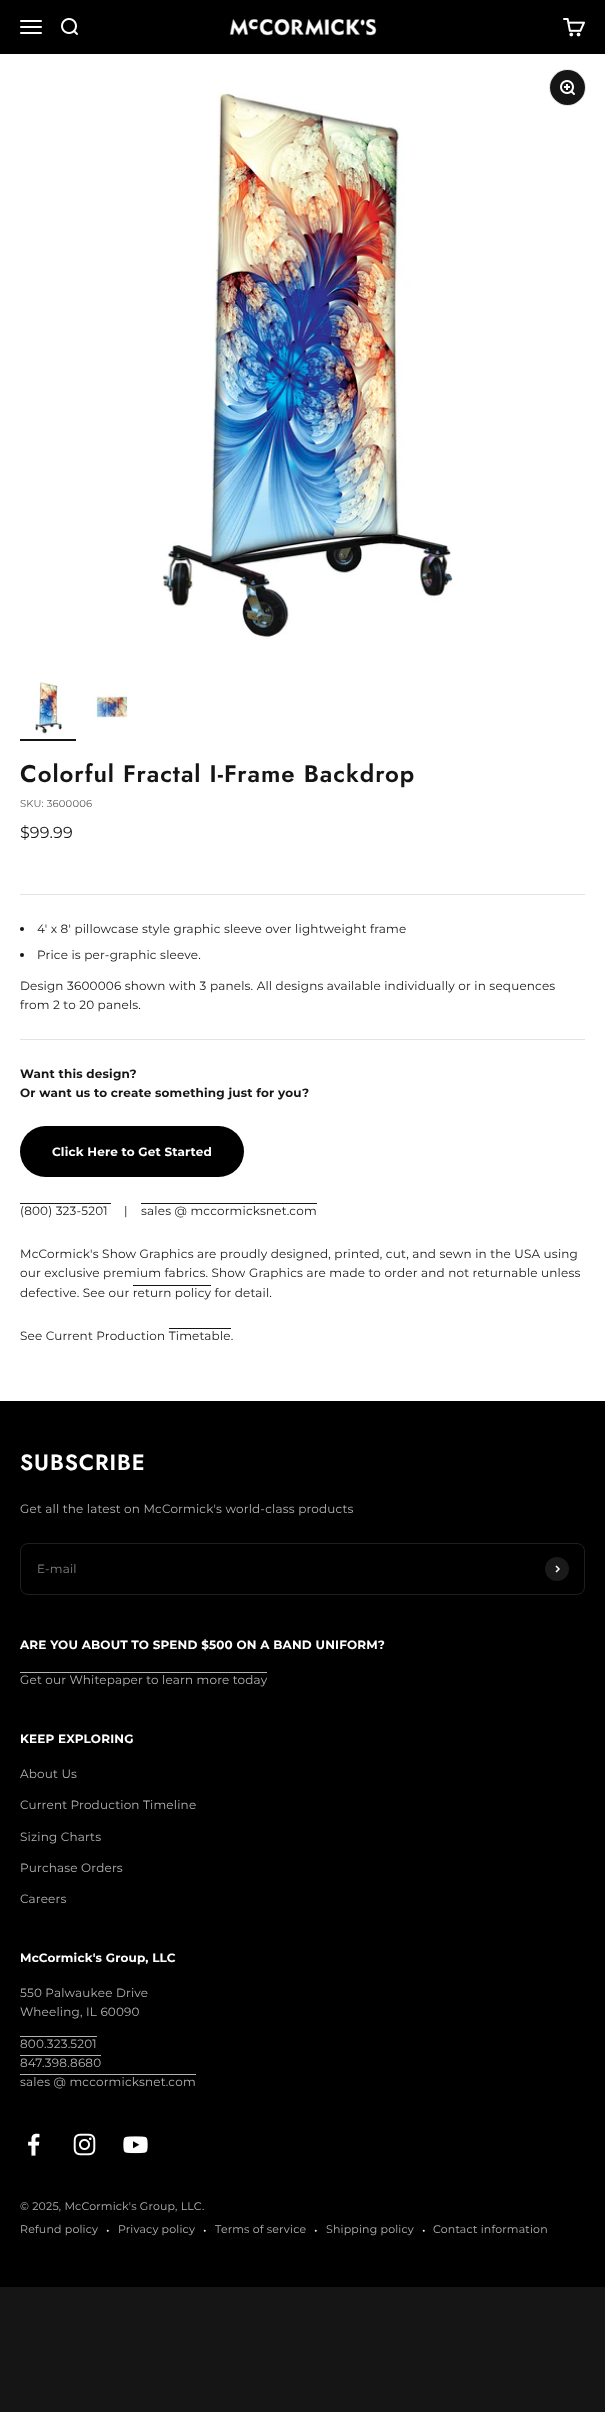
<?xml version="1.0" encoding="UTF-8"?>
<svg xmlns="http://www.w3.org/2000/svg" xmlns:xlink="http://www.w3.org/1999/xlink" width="605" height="2412">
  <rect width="100%" height="100%" fill="#151515" />
  <rect width="605" height="54" fill="#000000" />
  <image x="20" y="20" width="22" height="14" xlink:href="image1.png" />
  <image x="61" y="18" width="17" height="17" xlink:href="image2.png" />
  <image x="229" y="19" width="148" height="17" xlink:href="image3.png" />
  <image x="563" y="18" width="22" height="19" xlink:href="image4.png" />
  <rect y="54" width="605" height="1347" fill="#ffffff" />
  <circle cx="567.5" cy="87.5" r="18" fill="none" stroke="#e3e3e3" />
  <circle cx="567.5" cy="87.5" r="17.5" fill="#151515" />
  <image x="560" y="80" width="15" height="15" xlink:href="image5.png" />
  <image x="161" y="93" width="292" height="546" xlink:href="image6.png" />
  <image x="35" y="682" width="27" height="53" xlink:href="image7.png" />
  <rect x="20" y="739" width="56" height="2" fill="#151515" />
  <image x="93" y="694" width="36" height="27" xlink:href="image8.png" />
  <rect x="20" y="894" width="565" height="1" fill="#e3e3e3" />
  <circle cx="22" cy="929" r="2" fill="#151515" />
  <circle cx="22" cy="955" r="2" fill="#151515" />
  <rect x="20" y="1039" width="565" height="1" fill="#e3e3e3" />
  <rect x="20" y="1126" width="224" height="51" rx="25.5" fill="#000000" />
  <rect x="20" y="1203" width="91" height="1" fill="#151515" />
  <rect x="141" y="1203" width="176" height="1" fill="#151515" />
  <rect x="133" y="1285" width="78" height="1" fill="#151515" />
  <rect x="169" y="1328" width="62" height="1" fill="#151515" />
  <rect y="1401" width="605" height="886" fill="#000000" />
  <rect x="20.5" y="1543.5" width="564" height="51" rx="7.5" fill="none" stroke="#1f1f1f" />
  <circle cx="557" cy="1569" r="12" fill="#1a1a1a" />
  <path d="M 556 1572 l 3 -3 l -3 -3" fill="none" stroke="#ffffff" stroke-width="1.5" />
  <rect x="20" y="1672" width="247" height="1" fill="#b3b3b3" />
  <rect x="20" y="2036" width="77" height="1" fill="#b3b3b3" />
  <rect x="20" y="2055" width="81" height="1" fill="#b3b3b3" />
  <rect x="20" y="2074" width="176" height="1" fill="#b3b3b3" />
  <image x="28" y="2133" width="12" height="23" xlink:href="image9.png" />
  <image x="73" y="2133" width="23" height="23" xlink:href="image10.png" />
  <image x="123" y="2136" width="25" height="18" xlink:href="image11.png" />
  <text x="20" y="782" style="font-family: Jost; font-size: 24px; font-weight: 600; letter-spacing: 0.95px; fill: #151515">Colorful Fractal I-Frame Backdrop</text>
  <text x="20" y="807" style="font-family: Montserrat; font-size: 10px; letter-spacing: 0.18px; fill: #5b5b5b">SKU: 3600006</text>
  <text x="20" y="838" style="font-family: Montserrat; font-size: 16px; letter-spacing: 0.18px; fill: #151515">$99.99</text>
  <text x="37" y="933" style="font-family: Montserrat; font-size: 12px; letter-spacing: 0.18px; fill: #151515">4' x 8' pillowcase style graphic sleeve over lightweight frame</text>
  <text x="37" y="959" style="font-family: Montserrat; font-size: 12px; letter-spacing: 0.18px; fill: #151515">Price is per-graphic sleeve.</text>
  <text x="20" y="990" style="font-family: Montserrat; font-size: 12px; letter-spacing: 0.18px; fill: #151515">Design 3600006 shown with 3 panels. All designs available individually or in sequences</text>
  <text x="20" y="1009" style="font-family: Montserrat; font-size: 12px; letter-spacing: 0.18px; fill: #151515">from 2 to 20 panels.</text>
  <text x="20" y="1078" style="font-family: Montserrat; font-size: 12px; font-weight: bold; letter-spacing: 0.18px; fill: #151515">Want this design?</text>
  <text x="20" y="1097" style="font-family: Montserrat; font-size: 12px; font-weight: bold; letter-spacing: 0.18px; fill: #151515">Or want us to create something just for you?</text>
  <text x="52" y="1156" style="font-family: Montserrat; font-size: 12px; font-weight: bold; letter-spacing: 0.18px; fill: #ffffff">Click Here to Get Started</text>
  <text x="20" y="1215" style="font-family: Montserrat; font-size: 12px; letter-spacing: 0.18px; fill: #151515">(800) 323-5201</text>
  <text x="124" y="1215" style="font-family: Montserrat; font-size: 12px; letter-spacing: 0.18px; fill: #151515">|</text>
  <text x="141" y="1215" style="font-family: Montserrat; font-size: 12px; letter-spacing: 0.18px; fill: #151515">sales @ mccormicksnet.com</text>
  <text x="20" y="1258" style="font-family: Montserrat; font-size: 12px; letter-spacing: 0.18px; fill: #151515">McCormick's Show Graphics are proudly designed, printed, cut, and sewn in the USA using</text>
  <text x="20" y="1277" style="font-family: Montserrat; font-size: 12px; letter-spacing: 0.18px; fill: #151515">our exclusive premium fabrics. Show Graphics are made to order and not returnable unless</text>
  <text x="20" y="1297" style="font-family: Montserrat; font-size: 12px; letter-spacing: 0.18px; fill: #151515">defective. See our return policy for detail.</text>
  <text x="20" y="1340" style="font-family: Montserrat; font-size: 12px; letter-spacing: 0.18px; fill: #151515">See Current Production Timetable.</text>
  <text x="20" y="1470" style="font-family: Jost; font-size: 22px; font-weight: 600; letter-spacing: 0.9px; fill: #ffffff">SUBSCRIBE</text>
  <text x="20" y="1513" style="font-family: Montserrat; font-size: 12px; letter-spacing: 0.18px; fill: #b3b3b3">Get all the latest on McCormick's world-class products</text>
  <text x="37" y="1573" style="font-family: Montserrat; font-size: 12px; letter-spacing: 0.18px; fill: #808080">E-mail</text>
  <text x="20" y="1649" style="font-family: Montserrat; font-size: 12px; font-weight: bold; letter-spacing: 0.18px; fill: #ffffff">ARE YOU ABOUT TO SPEND $500 ON A BAND UNIFORM?</text>
  <text x="20" y="1684" style="font-family: Montserrat; font-size: 12px; letter-spacing: 0.18px; fill: #b3b3b3">Get our Whitepaper to learn more today</text>
  <text x="20" y="1743" style="font-family: Montserrat; font-size: 12px; font-weight: bold; letter-spacing: 0.18px; fill: #ffffff">KEEP EXPLORING</text>
  <text x="20" y="1778" style="font-family: Montserrat; font-size: 12px; letter-spacing: 0.18px; fill: #b3b3b3">About Us</text>
  <text x="20" y="1809" style="font-family: Montserrat; font-size: 12px; letter-spacing: 0.18px; fill: #b3b3b3">Current Production Timeline</text>
  <text x="20" y="1841" style="font-family: Montserrat; font-size: 12px; letter-spacing: 0.18px; fill: #b3b3b3">Sizing Charts</text>
  <text x="20" y="1872" style="font-family: Montserrat; font-size: 12px; letter-spacing: 0.18px; fill: #b3b3b3">Purchase Orders</text>
  <text x="20" y="1903" style="font-family: Montserrat; font-size: 12px; letter-spacing: 0.18px; fill: #b3b3b3">Careers</text>
  <text x="20" y="1962" style="font-family: Montserrat; font-size: 12px; font-weight: bold; letter-spacing: 0.18px; fill: #ffffff">McCormick's Group, LLC</text>
  <text x="20" y="1997" style="font-family: Montserrat; font-size: 12px; letter-spacing: 0.18px; fill: #b3b3b3">550 Palwaukee Drive</text>
  <text x="20" y="2016" style="font-family: Montserrat; font-size: 12px; letter-spacing: 0.18px; fill: #b3b3b3">Wheeling, IL 60090</text>
  <text x="20" y="2048" style="font-family: Montserrat; font-size: 12px; letter-spacing: 0.18px; fill: #b3b3b3">800.323.5201</text>
  <text x="20" y="2067" style="font-family: Montserrat; font-size: 12px; letter-spacing: 0.18px; fill: #b3b3b3">847.398.8680</text>
  <text x="20" y="2086" style="font-family: Montserrat; font-size: 12px; letter-spacing: 0.18px; fill: #b3b3b3">sales @ mccormicksnet.com</text>
  <text x="20" y="2210" style="font-family: Montserrat; font-size: 11px; letter-spacing: 0.18px; fill: #b3b3b3">© 2025, McCormick's Group, LLC.</text>
  <text x="20" y="2233" style="font-family: Montserrat; font-size: 11px; letter-spacing: 0.18px; fill: #b3b3b3">Refund policy</text>
  <text x="106" y="2234" style="font-family: Montserrat; font-size: 12px; letter-spacing: 0.18px; fill: #ffffff">•</text>
  <text x="118" y="2233" style="font-family: Montserrat; font-size: 11px; letter-spacing: 0.18px; fill: #b3b3b3">Privacy policy</text>
  <text x="203" y="2234" style="font-family: Montserrat; font-size: 12px; letter-spacing: 0.18px; fill: #ffffff">•</text>
  <text x="215" y="2233" style="font-family: Montserrat; font-size: 11px; letter-spacing: 0.18px; fill: #b3b3b3">Terms of service</text>
  <text x="314" y="2234" style="font-family: Montserrat; font-size: 12px; letter-spacing: 0.18px; fill: #ffffff">•</text>
  <text x="326" y="2233" style="font-family: Montserrat; font-size: 11px; letter-spacing: 0.18px; fill: #b3b3b3">Shipping policy</text>
  <text x="422" y="2234" style="font-family: Montserrat; font-size: 12px; letter-spacing: 0.18px; fill: #ffffff">•</text>
  <text x="433" y="2233" style="font-family: Montserrat; font-size: 11px; letter-spacing: 0.18px; fill: #b3b3b3">Contact information</text>
</svg>
